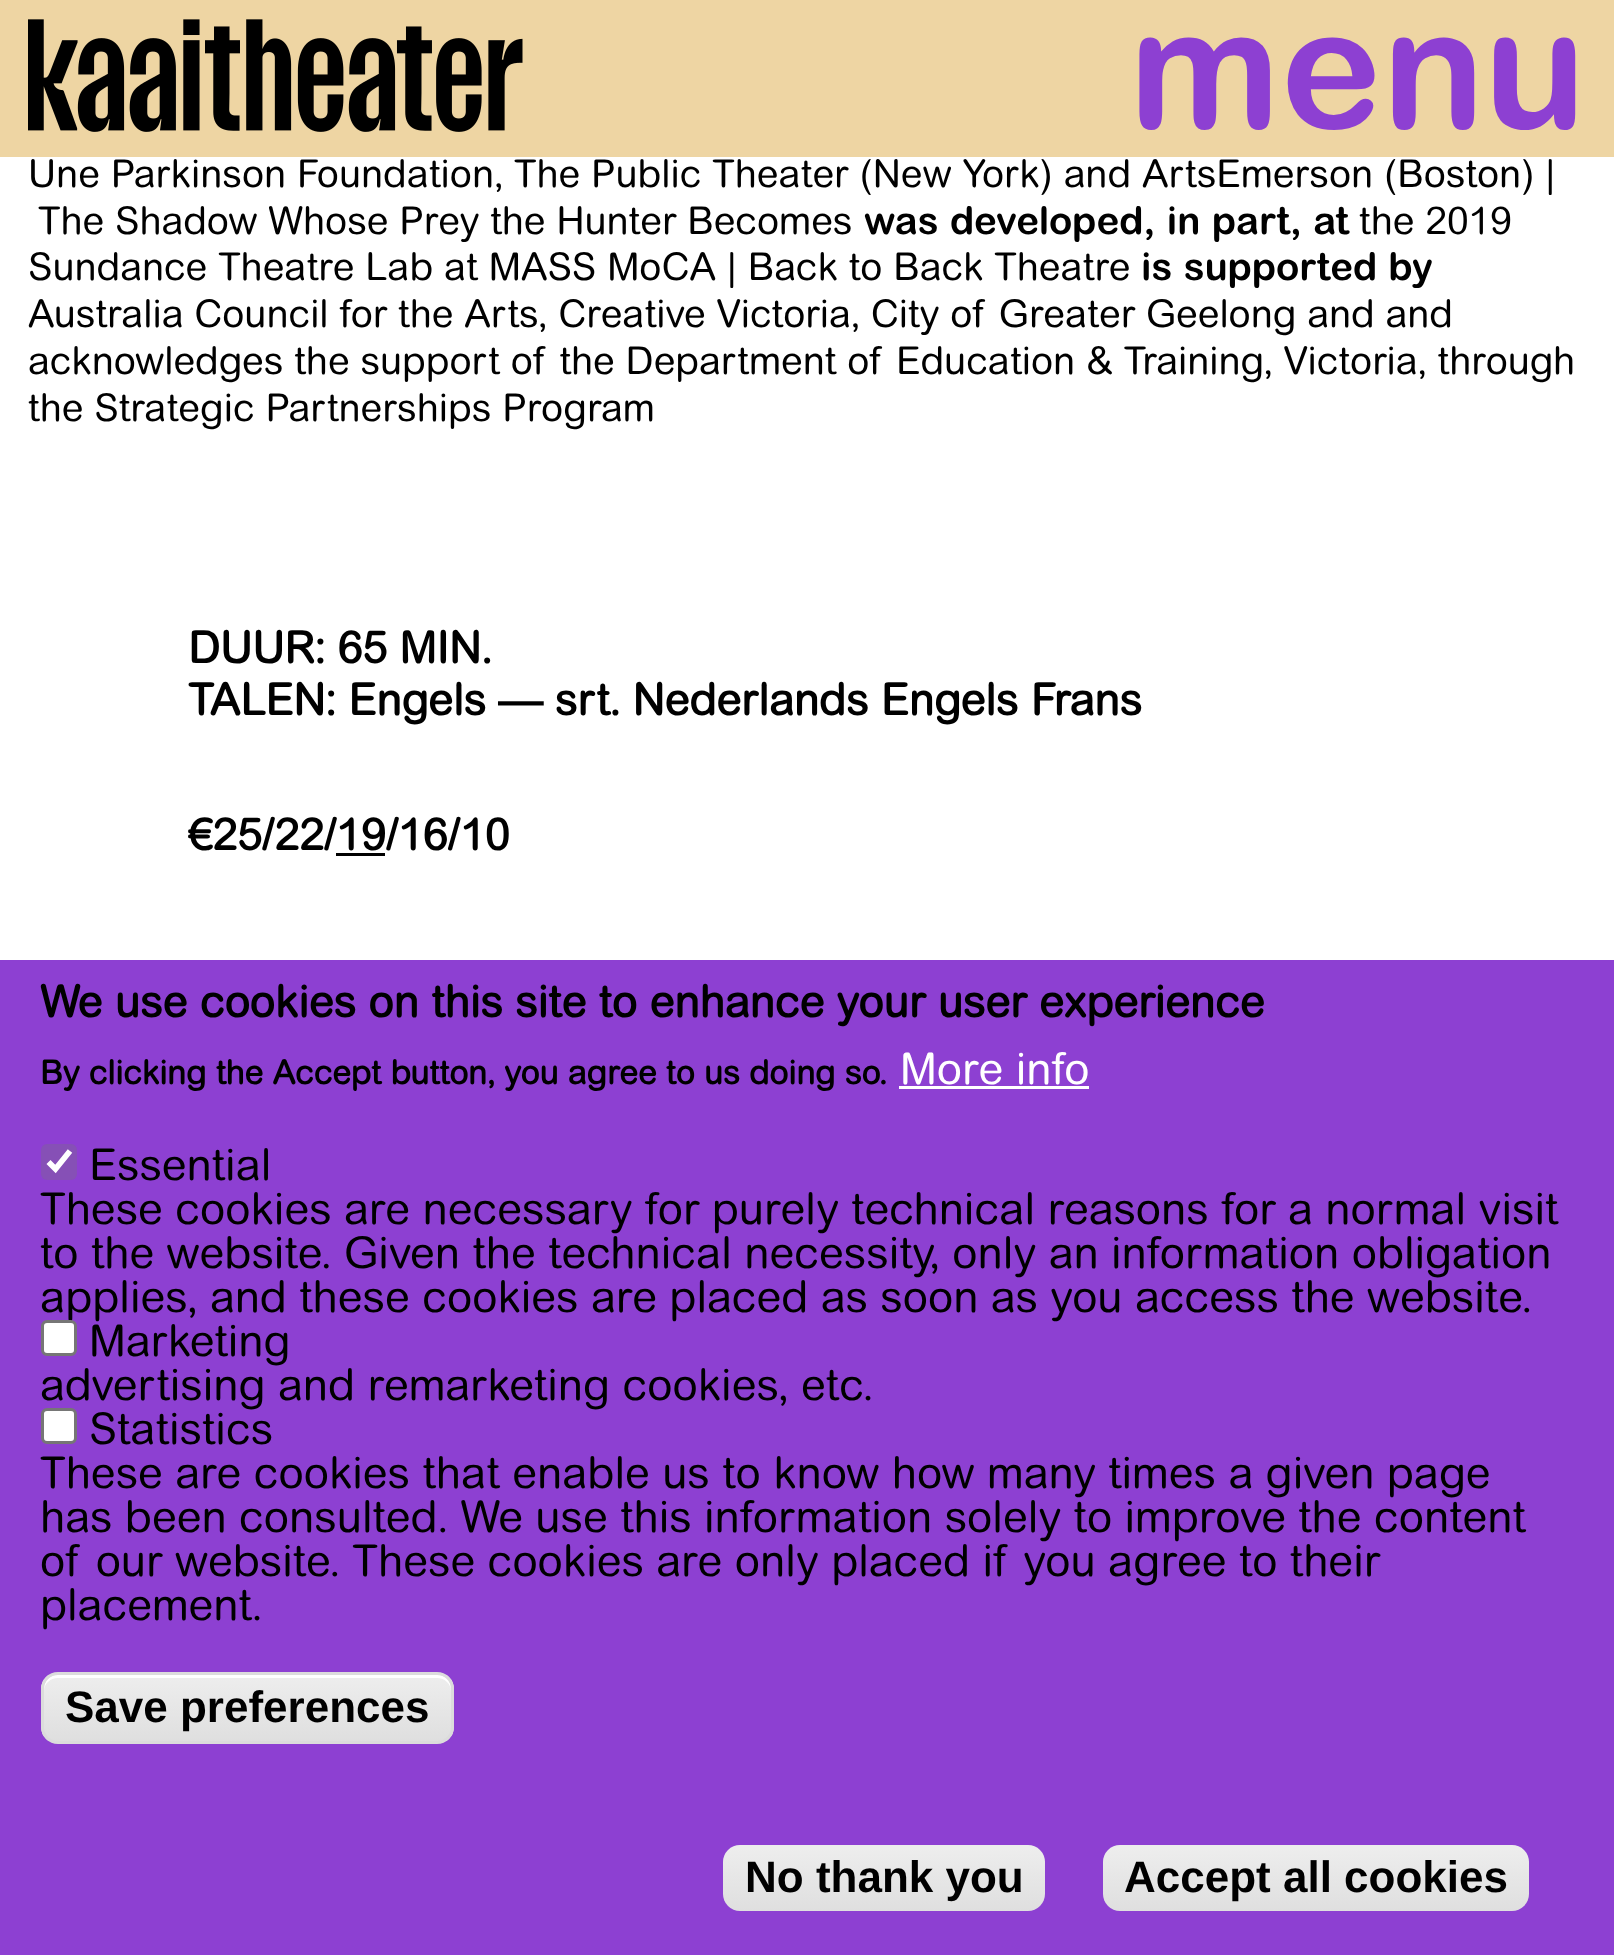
<?xml version="1.0" encoding="UTF-8"?>
<svg xmlns="http://www.w3.org/2000/svg" xmlns:xlink="http://www.w3.org/1999/xlink" width="1614" height="1955">
  <defs>
    <clipPath id="clip1"><rect x="41" y="1672" width="413" height="72" rx="17" /></clipPath>
    <linearGradient id="g1" gradientUnits="userSpaceOnUse" x1="248" y1="1675" x2="248" y2="1741"><stop offset="0.05" stop-color="#ededed" /><stop offset="1" stop-color="#dfdfdf" /></linearGradient>
    <linearGradient id="g2" gradientUnits="userSpaceOnUse" x1="884" y1="1845" x2="884" y2="1911"><stop offset="0.05" stop-color="#ededed" /><stop offset="1" stop-color="#dfdfdf" /></linearGradient>
    <linearGradient id="g3" gradientUnits="userSpaceOnUse" x1="1316" y1="1845" x2="1316" y2="1911"><stop offset="0.05" stop-color="#ededed" /><stop offset="1" stop-color="#dfdfdf" /></linearGradient>
  </defs>
  <rect width="100%" height="100%" fill="#ffffff" />
  <rect width="1614" height="157" fill="#eed5a3" />
  <image x="28" y="19" width="495" height="113" xlink:href="image1.png" />
  <rect x="336" y="853" width="49" height="3" fill="#000000" />
  <rect y="960" width="1614" height="995" fill="#8d40d2" />
  <rect x="899" y="1086" width="190" height="3" fill="#ffffff" />
  <rect x="41" y="1144" width="36" height="36" rx="6" fill="#8650b6" />
  <path d="M 48.5 1162 l 7 7 l 14.5 -18" fill="none" stroke="#ffffff" stroke-width="5.7" />
  <g clip-path="url(#clip1)">
    <rect x="41" y="1675" width="413" height="66" fill="url(#g1)" />
  </g>
  <path d="M 58 1678 h 379 c 8 0 14 6 14 13 v -2 c 0 -8 -6 -14 -14 -14 h -379 c -8 0 -14 6 -14 14 v 2 c 0 -7 6 -13 14 -13 z" fill="#ffffff" />
  <rect x="42.5" y="1673.5" width="410" height="69" rx="15.5" fill="none" stroke="#dcdcdc" stroke-width="3" />
  <rect x="723" y="1845" width="322" height="66" rx="17" fill="url(#g2)" />
  <rect x="1103" y="1845" width="426" height="66" rx="17" fill="url(#g3)" />
  <text x="1129" y="128" style="font-family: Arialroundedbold; font-size: 171px; font-weight: bold; fill: #8d40d2">menu</text>
  <text x="28" y="187" style="font-family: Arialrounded; font-size: 38.5px; fill: #000000">Une Parkinson Foundation, The Public Theater (New York) and ArtsEmerson (Boston) |</text>
  <text x="38" y="234" style="font-family: Arialrounded; font-size: 38.5px; fill: #000000">The Shadow Whose Prey the Hunter Becomes</text>
  <text x="864" y="234" style="font-family: Arialroundedbold; font-size: 38.5px; font-weight: bold; fill: #000000">was developed, in part, at</text>
  <text x="1359" y="234" style="font-family: Arialrounded; font-size: 38.5px; fill: #000000">the 2019</text>
  <text x="28" y="280" style="font-family: Arialrounded; font-size: 38.5px; fill: #000000">Sundance Theatre Lab at MASS MoCA | Back to Back Theatre</text>
  <text x="1141" y="280" style="font-family: Arialroundedbold; font-size: 38.5px; font-weight: bold; fill: #000000">is supported by</text>
  <text x="28" y="327" style="font-family: Arialrounded; font-size: 38.5px; fill: #000000">Australia Council for the Arts, Creative Victoria, City of Greater Geelong and and</text>
  <text x="28" y="374" style="font-family: Arialrounded; font-size: 38.5px; fill: #000000">acknowledges the support of the Department of Education &amp; Training, Victoria, through</text>
  <text x="28" y="421" style="font-family: Arialrounded; font-size: 38.5px; fill: #000000">the Strategic Partnerships Program</text>
  <text x="188" y="663" style="font-family: Arialrounded; font-size: 44px; font-weight: bold; fill: #000000">DUUR: 65 MIN.</text>
  <text x="188" y="715" style="font-family: Arialrounded; font-size: 44px; font-weight: bold; fill: #000000">TALEN: Engels — srt. Nederlands Engels Frans</text>
  <text x="188" y="850" style="font-family: Arialrounded; font-size: 44px; font-weight: bold; fill: #000000">€25/22/19/16/10</text>
  <text x="40" y="1017" style="font-family: Arialrounded; font-size: 44px; font-weight: bold; fill: #000000">We use cookies on this site to enhance your user experience</text>
  <text x="40" y="1084" style="font-family: Arialrounded; font-size: 33px; font-weight: bold; fill: #000000">By clicking the Accept button, you agree to us doing so.</text>
  <text x="900" y="1084" style="font-family: Arialrounded; font-size: 44px; fill: #ffffff">More info</text>
  <text x="89" y="1180" style="font-family: Arialrounded; font-size: 44px; fill: #000000">Essential</text>
  <text x="40" y="1224" style="font-family: Arialrounded; font-size: 44px; fill: #000000">These cookies are necessary for purely technical reasons for a normal visit</text>
  <text x="40" y="1268" style="font-family: Arialrounded; font-size: 44px; fill: #000000">to the website. Given the technical necessity, only an information obligation</text>
  <text x="40" y="1312" style="font-family: Arialrounded; font-size: 44px; fill: #000000">applies, and these cookies are placed as soon as you access the website.</text>
  <rect x="42.5" y="1321.5" width="33" height="33" rx="4.5" fill="#ffffff" stroke="#767676" stroke-width="3" />
  <text x="89" y="1356" style="font-family: Arialrounded; font-size: 44px; fill: #000000">Marketing</text>
  <text x="40" y="1400" style="font-family: Arialrounded; font-size: 44px; fill: #000000">advertising and remarketing cookies, etc.</text>
  <rect x="42.5" y="1409.5" width="33" height="33" rx="4.5" fill="#ffffff" stroke="#767676" stroke-width="3" />
  <text x="89" y="1444" style="font-family: Arialrounded; font-size: 44px; fill: #000000">Statistics</text>
  <text x="40" y="1488" style="font-family: Arialrounded; font-size: 44px; fill: #000000">These are cookies that enable us to know how many times a given page</text>
  <text x="40" y="1532" style="font-family: Arialrounded; font-size: 44px; fill: #000000">has been consulted. We use this information solely to improve the content</text>
  <text x="40" y="1576" style="font-family: Arialrounded; font-size: 44px; fill: #000000">of our website. These cookies are only placed if you agree to their</text>
  <text x="40" y="1620" style="font-family: Arialrounded; font-size: 44px; fill: #000000">placement.</text>
  <text x="65" y="1722" style="font-family: Liberation Sans; font-size: 44px; font-weight: bold; fill: #000000">Save preferences</text>
  <text x="745" y="1892" style="font-family: Liberation Sans; font-size: 44px; font-weight: bold; fill: #000000">No thank you</text>
  <text x="1124" y="1892" style="font-family: Liberation Sans; font-size: 44px; font-weight: bold; fill: #000000">Accept all cookies</text>
</svg>
